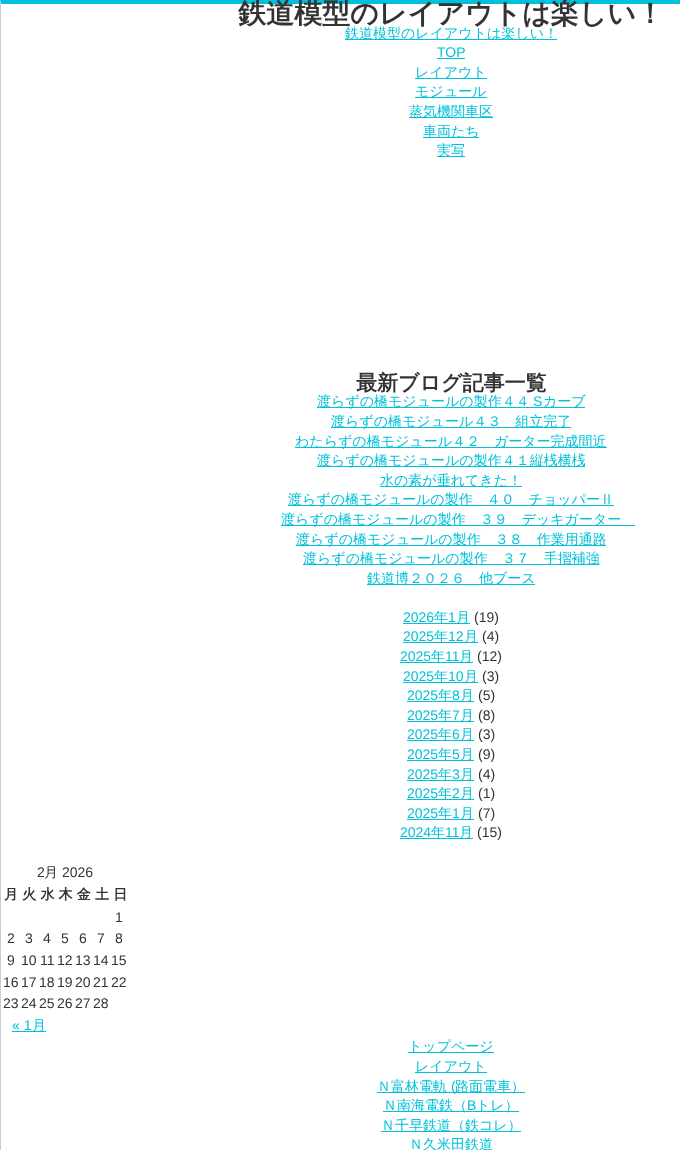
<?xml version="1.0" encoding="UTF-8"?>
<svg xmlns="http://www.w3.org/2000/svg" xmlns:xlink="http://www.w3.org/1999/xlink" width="680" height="1150">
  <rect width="100%" height="100%" fill="#ffffff" />
  <path d="M 0 0 h 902 l -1 4 h -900 z" fill="#00c1d9" />
  <path d="M 0 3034 v -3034 l 1 4 v 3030 z" fill="#cccccc" />
  <rect x="345" y="39" width="212" height="1" fill="#00c1d9" />
  <rect x="437" y="58" width="28" height="1" fill="#00c1d9" />
  <rect x="415" y="78" width="72" height="1" fill="#00c1d9" />
  <rect x="415" y="97" width="72" height="1" fill="#00c1d9" />
  <rect x="409" y="117" width="84" height="1" fill="#00c1d9" />
  <rect x="423" y="137" width="56" height="1" fill="#00c1d9" />
  <rect x="437" y="156" width="28" height="1" fill="#00c1d9" />
  <rect x="317" y="407" width="268" height="1" fill="#00c1d9" />
  <rect x="331" y="427" width="240" height="1" fill="#00c1d9" />
  <rect x="295" y="447" width="312" height="1" fill="#00c1d9" />
  <rect x="317" y="466" width="268" height="1" fill="#00c1d9" />
  <rect x="380" y="486" width="142" height="1" fill="#00c1d9" />
  <rect x="288" y="505" width="326" height="1" fill="#00c1d9" />
  <rect x="281" y="525" width="354" height="1" fill="#00c1d9" />
  <rect x="296" y="545" width="310" height="1" fill="#00c1d9" />
  <rect x="303" y="564" width="296" height="1" fill="#00c1d9" />
  <rect x="367" y="584" width="168" height="1" fill="#00c1d9" />
  <rect x="403" y="623" width="67" height="1" fill="#00c1d9" />
  <rect x="403" y="642" width="75" height="1" fill="#00c1d9" />
  <rect x="400" y="662" width="73" height="1" fill="#00c1d9" />
  <rect x="403" y="682" width="75" height="1" fill="#00c1d9" />
  <rect x="407" y="701" width="67" height="1" fill="#00c1d9" />
  <rect x="407" y="721" width="67" height="1" fill="#00c1d9" />
  <rect x="407" y="740" width="67" height="1" fill="#00c1d9" />
  <rect x="407" y="760" width="67" height="1" fill="#00c1d9" />
  <rect x="407" y="780" width="67" height="1" fill="#00c1d9" />
  <rect x="407" y="799" width="67" height="1" fill="#00c1d9" />
  <rect x="407" y="819" width="67" height="1" fill="#00c1d9" />
  <rect x="400" y="838" width="73" height="1" fill="#00c1d9" />
  <rect x="12" y="1031" width="34" height="1" fill="#00c1d9" />
  <rect x="408" y="1052" width="86" height="1" fill="#00c1d9" />
  <rect x="415" y="1072" width="72" height="1" fill="#00c1d9" />
  <rect x="377" y="1092" width="148" height="1" fill="#00c1d9" />
  <rect x="383" y="1111" width="136" height="1" fill="#00c1d9" />
  <rect x="381" y="1131" width="140" height="1" fill="#00c1d9" />
  <text x="238" y="23" style="font-family: WenQuanYi Zen Hei; font-size: 28px; font-weight: bold; fill: #333333">鉄道模型のレイアウトは楽しい！</text>
  <text x="345" y="38" style="font-family: WenQuanYi Zen Hei; font-size: 14px; font-weight: 500; fill: #00c1d9">鉄道模型のレイアウトは楽しい！</text>
  <text x="437" y="57" style="font-family: Liberation Sans; font-size: 14px; fill: #00c1d9">TOP</text>
  <text x="415" y="77" style="font-family: WenQuanYi Zen Hei; font-size: 14px; font-weight: 500; fill: #00c1d9">レイアウト</text>
  <text x="415" y="96" style="font-family: WenQuanYi Zen Hei; font-size: 14px; font-weight: 500; fill: #00c1d9">モジュール</text>
  <text x="409" y="116" style="font-family: WenQuanYi Zen Hei; font-size: 14px; font-weight: 500; fill: #00c1d9">蒸気機関車区</text>
  <text x="423" y="136" style="font-family: WenQuanYi Zen Hei; font-size: 14px; font-weight: 500; fill: #00c1d9">車両たち</text>
  <text x="437" y="155" style="font-family: WenQuanYi Zen Hei; font-size: 14px; font-weight: 500; fill: #00c1d9">実写</text>
  <text x="356" y="390" style="font-family: WenQuanYi Zen Hei; font-size: 21px; font-weight: bold; fill: #333333">最新ブログ記事一覧</text>
  <text x="317" y="406" style="font-family: WenQuanYi Zen Hei; font-size: 14px; font-weight: 500; fill: #00c1d9">渡らずの橋モジュールの製作４４</text>
  <text x="533" y="406" style="font-family: Liberation Sans; font-size: 14px; fill: #00c1d9">S</text>
  <text x="543" y="406" style="font-family: WenQuanYi Zen Hei; font-size: 14px; font-weight: 500; fill: #00c1d9">カーブ</text>
  <text x="331" y="426" style="font-family: WenQuanYi Zen Hei; font-size: 14px; font-weight: 500; fill: #00c1d9">渡らずの橋モジュール４３　組立完了</text>
  <text x="295" y="446" style="font-family: WenQuanYi Zen Hei; font-size: 14px; font-weight: 500; fill: #00c1d9">わたらずの橋モジュール４２　ガーター完成間近</text>
  <text x="317" y="465" style="font-family: WenQuanYi Zen Hei; font-size: 14px; font-weight: 500; fill: #00c1d9">渡らずの橋モジュールの製作４１縦桟横桟</text>
  <text x="380" y="485" style="font-family: WenQuanYi Zen Hei; font-size: 14px; font-weight: 500; fill: #00c1d9">水の素が垂れてきた！</text>
  <text x="288" y="504" style="font-family: WenQuanYi Zen Hei; font-size: 14px; font-weight: 500; fill: #00c1d9">渡らずの橋モジュールの製作　４０　チョッパーⅡ</text>
  <text x="281" y="524" style="font-family: WenQuanYi Zen Hei; font-size: 14px; font-weight: 500; fill: #00c1d9">渡らずの橋モジュールの製作　３９　デッキガーター</text>
  <text x="296" y="544" style="font-family: WenQuanYi Zen Hei; font-size: 14px; font-weight: 500; fill: #00c1d9">渡らずの橋モジュールの製作　３８　作業用通路</text>
  <text x="303" y="563" style="font-family: WenQuanYi Zen Hei; font-size: 14px; font-weight: 500; fill: #00c1d9">渡らずの橋モジュールの製作　３７　手摺補強</text>
  <text x="367" y="583" style="font-family: WenQuanYi Zen Hei; font-size: 14px; font-weight: 500; fill: #00c1d9">鉄道博２０２６　他ブース</text>
  <text x="403" y="622" style="font-family: Liberation Sans; font-size: 14px; fill: #00c1d9">2026</text>
  <text x="434" y="622" style="font-family: WenQuanYi Zen Hei; font-size: 14px; font-weight: 500; fill: #00c1d9">年</text>
  <text x="448" y="622" style="font-family: Liberation Sans; font-size: 14px; fill: #00c1d9">1</text>
  <text x="456" y="622" style="font-family: WenQuanYi Zen Hei; font-size: 14px; font-weight: 500; fill: #00c1d9">月</text>
  <text x="474" y="622" style="font-family: Liberation Sans; font-size: 14px; fill: #333333">(19)</text>
  <text x="403" y="641" style="font-family: Liberation Sans; font-size: 14px; fill: #00c1d9">2025</text>
  <text x="434" y="641" style="font-family: WenQuanYi Zen Hei; font-size: 14px; font-weight: 500; fill: #00c1d9">年</text>
  <text x="448" y="641" style="font-family: Liberation Sans; font-size: 14px; fill: #00c1d9">12</text>
  <text x="464" y="641" style="font-family: WenQuanYi Zen Hei; font-size: 14px; font-weight: 500; fill: #00c1d9">月</text>
  <text x="482" y="641" style="font-family: Liberation Sans; font-size: 14px; fill: #333333">(4)</text>
  <text x="400" y="661" style="font-family: Liberation Sans; font-size: 14px; fill: #00c1d9">2025</text>
  <text x="431" y="661" style="font-family: WenQuanYi Zen Hei; font-size: 14px; font-weight: 500; fill: #00c1d9">年</text>
  <text x="445" y="661" style="font-family: Liberation Sans; font-size: 14px; fill: #00c1d9">11</text>
  <text x="459" y="661" style="font-family: WenQuanYi Zen Hei; font-size: 14px; font-weight: 500; fill: #00c1d9">月</text>
  <text x="477" y="661" style="font-family: Liberation Sans; font-size: 14px; fill: #333333">(12)</text>
  <text x="403" y="681" style="font-family: Liberation Sans; font-size: 14px; fill: #00c1d9">2025</text>
  <text x="434" y="681" style="font-family: WenQuanYi Zen Hei; font-size: 14px; font-weight: 500; fill: #00c1d9">年</text>
  <text x="448" y="681" style="font-family: Liberation Sans; font-size: 14px; fill: #00c1d9">10</text>
  <text x="464" y="681" style="font-family: WenQuanYi Zen Hei; font-size: 14px; font-weight: 500; fill: #00c1d9">月</text>
  <text x="482" y="681" style="font-family: Liberation Sans; font-size: 14px; fill: #333333">(3)</text>
  <text x="407" y="700" style="font-family: Liberation Sans; font-size: 14px; fill: #00c1d9">2025</text>
  <text x="438" y="700" style="font-family: WenQuanYi Zen Hei; font-size: 14px; font-weight: 500; fill: #00c1d9">年</text>
  <text x="452" y="700" style="font-family: Liberation Sans; font-size: 14px; fill: #00c1d9">8</text>
  <text x="460" y="700" style="font-family: WenQuanYi Zen Hei; font-size: 14px; font-weight: 500; fill: #00c1d9">月</text>
  <text x="478" y="700" style="font-family: Liberation Sans; font-size: 14px; fill: #333333">(5)</text>
  <text x="407" y="720" style="font-family: Liberation Sans; font-size: 14px; fill: #00c1d9">2025</text>
  <text x="438" y="720" style="font-family: WenQuanYi Zen Hei; font-size: 14px; font-weight: 500; fill: #00c1d9">年</text>
  <text x="452" y="720" style="font-family: Liberation Sans; font-size: 14px; fill: #00c1d9">7</text>
  <text x="460" y="720" style="font-family: WenQuanYi Zen Hei; font-size: 14px; font-weight: 500; fill: #00c1d9">月</text>
  <text x="478" y="720" style="font-family: Liberation Sans; font-size: 14px; fill: #333333">(8)</text>
  <text x="407" y="739" style="font-family: Liberation Sans; font-size: 14px; fill: #00c1d9">2025</text>
  <text x="438" y="739" style="font-family: WenQuanYi Zen Hei; font-size: 14px; font-weight: 500; fill: #00c1d9">年</text>
  <text x="452" y="739" style="font-family: Liberation Sans; font-size: 14px; fill: #00c1d9">6</text>
  <text x="460" y="739" style="font-family: WenQuanYi Zen Hei; font-size: 14px; font-weight: 500; fill: #00c1d9">月</text>
  <text x="478" y="739" style="font-family: Liberation Sans; font-size: 14px; fill: #333333">(3)</text>
  <text x="407" y="759" style="font-family: Liberation Sans; font-size: 14px; fill: #00c1d9">2025</text>
  <text x="438" y="759" style="font-family: WenQuanYi Zen Hei; font-size: 14px; font-weight: 500; fill: #00c1d9">年</text>
  <text x="452" y="759" style="font-family: Liberation Sans; font-size: 14px; fill: #00c1d9">5</text>
  <text x="460" y="759" style="font-family: WenQuanYi Zen Hei; font-size: 14px; font-weight: 500; fill: #00c1d9">月</text>
  <text x="478" y="759" style="font-family: Liberation Sans; font-size: 14px; fill: #333333">(9)</text>
  <text x="407" y="779" style="font-family: Liberation Sans; font-size: 14px; fill: #00c1d9">2025</text>
  <text x="438" y="779" style="font-family: WenQuanYi Zen Hei; font-size: 14px; font-weight: 500; fill: #00c1d9">年</text>
  <text x="452" y="779" style="font-family: Liberation Sans; font-size: 14px; fill: #00c1d9">3</text>
  <text x="460" y="779" style="font-family: WenQuanYi Zen Hei; font-size: 14px; font-weight: 500; fill: #00c1d9">月</text>
  <text x="478" y="779" style="font-family: Liberation Sans; font-size: 14px; fill: #333333">(4)</text>
  <text x="407" y="798" style="font-family: Liberation Sans; font-size: 14px; fill: #00c1d9">2025</text>
  <text x="438" y="798" style="font-family: WenQuanYi Zen Hei; font-size: 14px; font-weight: 500; fill: #00c1d9">年</text>
  <text x="452" y="798" style="font-family: Liberation Sans; font-size: 14px; fill: #00c1d9">2</text>
  <text x="460" y="798" style="font-family: WenQuanYi Zen Hei; font-size: 14px; font-weight: 500; fill: #00c1d9">月</text>
  <text x="478" y="798" style="font-family: Liberation Sans; font-size: 14px; fill: #333333">(1)</text>
  <text x="407" y="818" style="font-family: Liberation Sans; font-size: 14px; fill: #00c1d9">2025</text>
  <text x="438" y="818" style="font-family: WenQuanYi Zen Hei; font-size: 14px; font-weight: 500; fill: #00c1d9">年</text>
  <text x="452" y="818" style="font-family: Liberation Sans; font-size: 14px; fill: #00c1d9">1</text>
  <text x="460" y="818" style="font-family: WenQuanYi Zen Hei; font-size: 14px; font-weight: 500; fill: #00c1d9">月</text>
  <text x="478" y="818" style="font-family: Liberation Sans; font-size: 14px; fill: #333333">(7)</text>
  <text x="400" y="837" style="font-family: Liberation Sans; font-size: 14px; fill: #00c1d9">2024</text>
  <text x="431" y="837" style="font-family: WenQuanYi Zen Hei; font-size: 14px; font-weight: 500; fill: #00c1d9">年</text>
  <text x="445" y="837" style="font-family: Liberation Sans; font-size: 14px; fill: #00c1d9">11</text>
  <text x="459" y="837" style="font-family: WenQuanYi Zen Hei; font-size: 14px; font-weight: 500; fill: #00c1d9">月</text>
  <text x="477" y="837" style="font-family: Liberation Sans; font-size: 14px; fill: #333333">(15)</text>
  <text x="37" y="877" style="font-family: Liberation Sans; font-size: 14px; fill: #333333">2</text>
  <text x="44" y="877" style="font-family: WenQuanYi Zen Hei; font-size: 14px; font-weight: 500; fill: #333333">月</text>
  <text x="62" y="877" style="font-family: Liberation Sans; font-size: 14px; fill: #333333">2026</text>
  <text x="4" y="899" style="font-family: WenQuanYi Zen Hei; font-size: 14px; font-weight: bold; fill: #333333">月 火 水 木 金 土 日</text>
  <text x="115" y="922" style="font-family: Liberation Sans; font-size: 14px; fill: #333333">1</text>
  <text x="7" y="943" style="font-family: Liberation Sans; font-size: 14px; fill: #333333">2</text>
  <text x="25" y="943" style="font-family: Liberation Sans; font-size: 14px; fill: #333333">3</text>
  <text x="43" y="943" style="font-family: Liberation Sans; font-size: 14px; fill: #333333">4</text>
  <text x="61" y="943" style="font-family: Liberation Sans; font-size: 14px; fill: #333333">5</text>
  <text x="79" y="943" style="font-family: Liberation Sans; font-size: 14px; fill: #333333">6</text>
  <text x="97" y="943" style="font-family: Liberation Sans; font-size: 14px; fill: #333333">7</text>
  <text x="115" y="943" style="font-family: Liberation Sans; font-size: 14px; fill: #333333">8</text>
  <text x="7" y="965" style="font-family: Liberation Sans; font-size: 14px; fill: #333333">9</text>
  <text x="21" y="965" style="font-family: Liberation Sans; font-size: 14px; fill: #333333">10</text>
  <text x="40" y="965" style="font-family: Liberation Sans; font-size: 14px; fill: #333333">11</text>
  <text x="57" y="965" style="font-family: Liberation Sans; font-size: 14px; fill: #333333">12</text>
  <text x="75" y="965" style="font-family: Liberation Sans; font-size: 14px; fill: #333333">13</text>
  <text x="93" y="965" style="font-family: Liberation Sans; font-size: 14px; fill: #333333">14</text>
  <text x="111" y="965" style="font-family: Liberation Sans; font-size: 14px; fill: #333333">15</text>
  <text x="3" y="987" style="font-family: Liberation Sans; font-size: 14px; fill: #333333">16</text>
  <text x="21" y="987" style="font-family: Liberation Sans; font-size: 14px; fill: #333333">17</text>
  <text x="39" y="987" style="font-family: Liberation Sans; font-size: 14px; fill: #333333">18</text>
  <text x="57" y="987" style="font-family: Liberation Sans; font-size: 14px; fill: #333333">19</text>
  <text x="75" y="987" style="font-family: Liberation Sans; font-size: 14px; fill: #333333">20</text>
  <text x="93" y="987" style="font-family: Liberation Sans; font-size: 14px; fill: #333333">21</text>
  <text x="111" y="987" style="font-family: Liberation Sans; font-size: 14px; fill: #333333">22</text>
  <text x="3" y="1008" style="font-family: Liberation Sans; font-size: 14px; fill: #333333">23</text>
  <text x="21" y="1008" style="font-family: Liberation Sans; font-size: 14px; fill: #333333">24</text>
  <text x="39" y="1008" style="font-family: Liberation Sans; font-size: 14px; fill: #333333">25</text>
  <text x="57" y="1008" style="font-family: Liberation Sans; font-size: 14px; fill: #333333">26</text>
  <text x="75" y="1008" style="font-family: Liberation Sans; font-size: 14px; fill: #333333">27</text>
  <text x="93" y="1008" style="font-family: Liberation Sans; font-size: 14px; fill: #333333">28</text>
  <text x="12" y="1030" style="font-family: Liberation Sans; font-size: 14px; fill: #00c1d9">« 1</text>
  <text x="32" y="1030" style="font-family: WenQuanYi Zen Hei; font-size: 14px; font-weight: 500; fill: #00c1d9">月</text>
  <text x="408" y="1051" style="font-family: WenQuanYi Zen Hei; font-size: 14px; font-weight: 500; fill: #00c1d9">トップページ</text>
  <text x="415" y="1071" style="font-family: WenQuanYi Zen Hei; font-size: 14px; font-weight: 500; fill: #00c1d9">レイアウト</text>
  <text x="377" y="1091" style="font-family: WenQuanYi Zen Hei; font-size: 14px; font-weight: 500; fill: #00c1d9">Ｎ富林電軌</text>
  <text x="451" y="1091" style="font-family: Liberation Sans; font-size: 14px; fill: #00c1d9">(</text>
  <text x="455" y="1091" style="font-family: WenQuanYi Zen Hei; font-size: 14px; font-weight: 500; fill: #00c1d9">路面電車）</text>
  <text x="383" y="1110" style="font-family: WenQuanYi Zen Hei; font-size: 14px; font-weight: 500; fill: #00c1d9">Ｎ南海電鉄（</text>
  <text x="467" y="1110" style="font-family: Liberation Sans; font-size: 14px; fill: #00c1d9">B</text>
  <text x="476" y="1110" style="font-family: WenQuanYi Zen Hei; font-size: 14px; font-weight: 500; fill: #00c1d9">トレ）</text>
  <text x="381" y="1130" style="font-family: WenQuanYi Zen Hei; font-size: 14px; font-weight: 500; fill: #00c1d9">Ｎ千早鉄道（鉄コレ）</text>
  <text x="409" y="1149" style="font-family: WenQuanYi Zen Hei; font-size: 14px; font-weight: 500; fill: #00c1d9">Ｎ久米田鉄道</text>
</svg>
